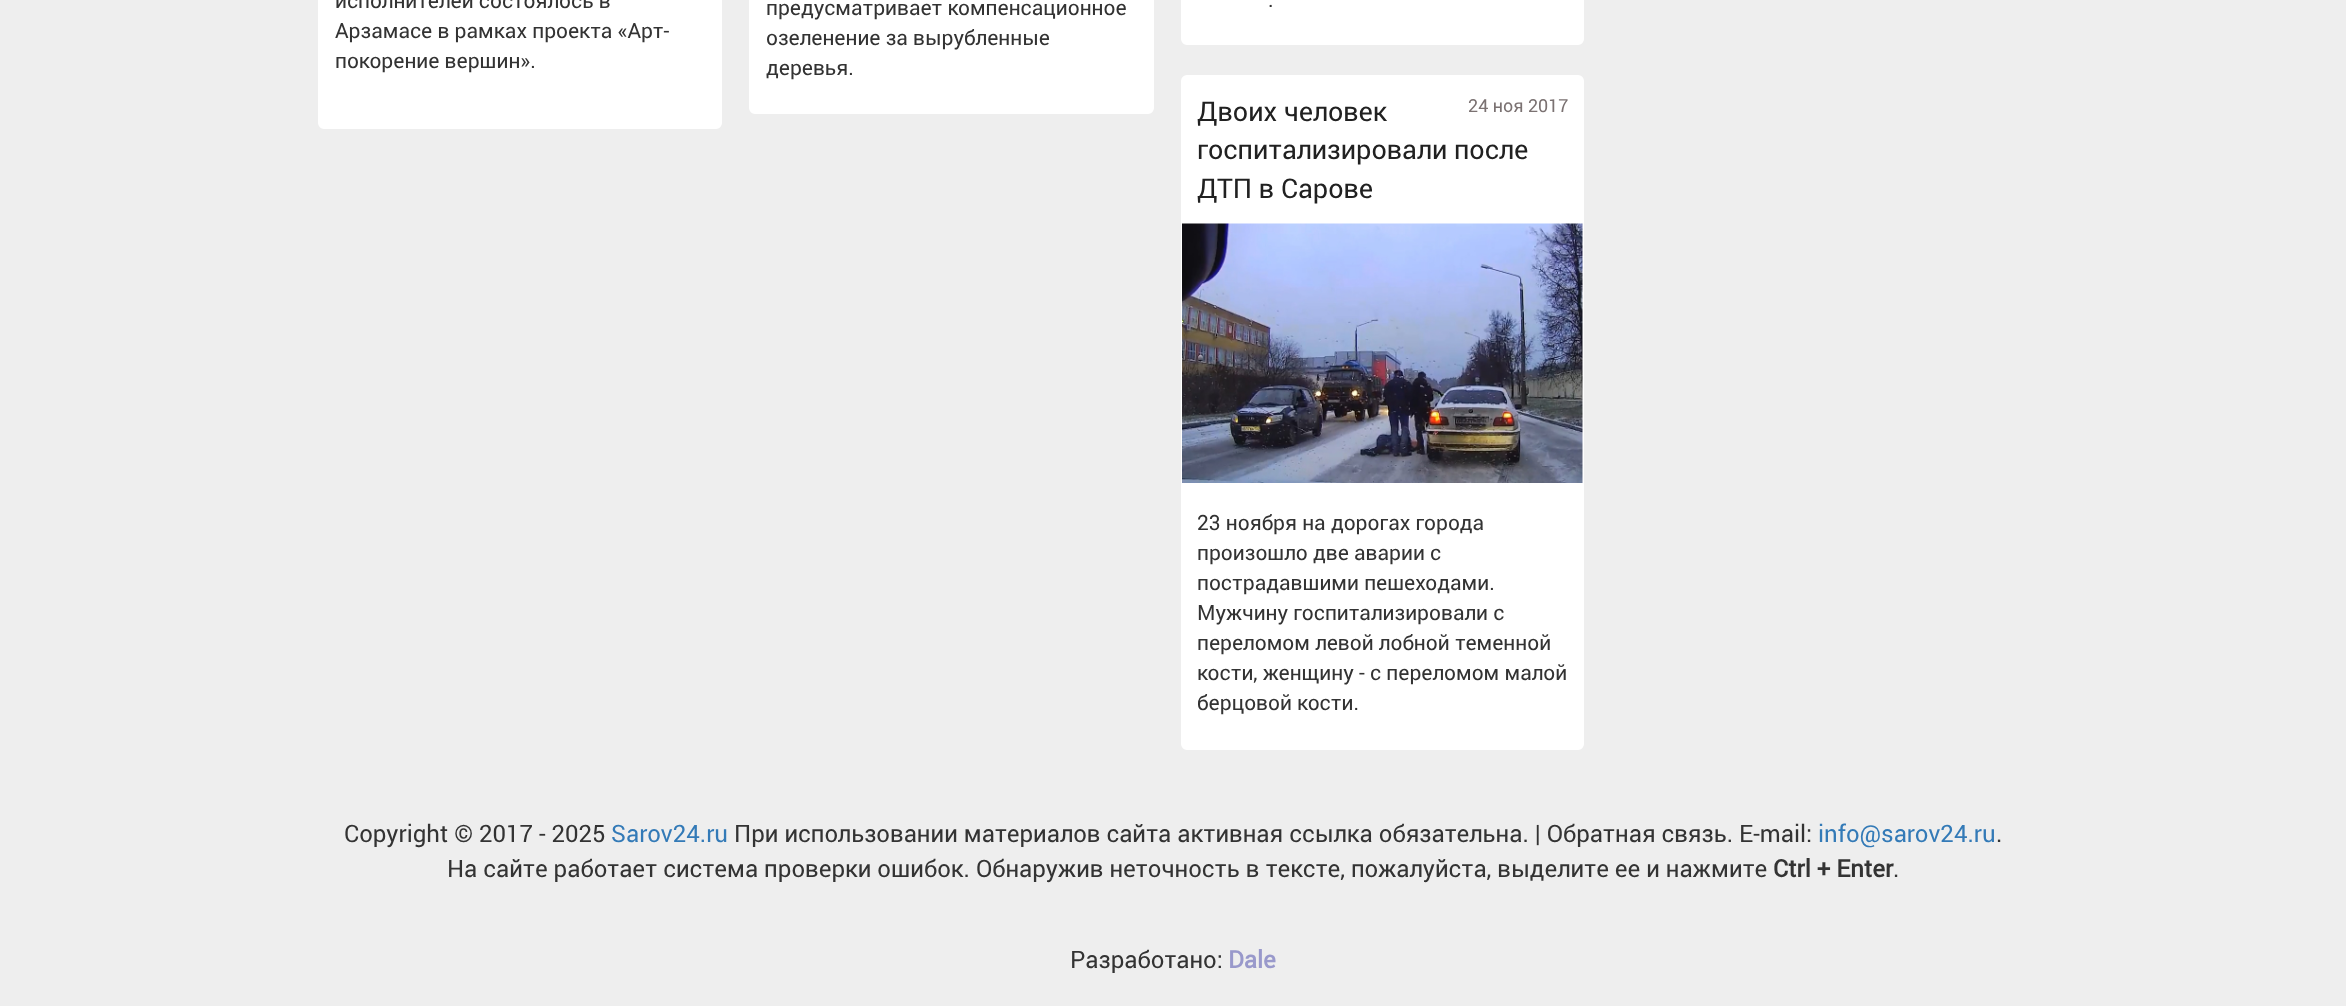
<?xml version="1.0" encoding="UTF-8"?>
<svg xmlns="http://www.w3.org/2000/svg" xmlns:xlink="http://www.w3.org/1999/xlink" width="2346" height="1006">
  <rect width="100%" height="100%" fill="#eeeeee" />
  <rect x="319" y="-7" width="402" height="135" rx="5" fill="#ffffff" stroke="#ffffff" stroke-width="2" />
  <rect x="750" y="-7" width="403" height="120" rx="5" fill="#ffffff" stroke="#ffffff" stroke-width="2" />
  <rect x="1182" y="-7" width="401" height="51" rx="5" fill="#ffffff" stroke="#ffffff" stroke-width="2" />
  <rect x="1182" y="76" width="401" height="673" rx="5" fill="#ffffff" stroke="#ffffff" stroke-width="2" />
  <image x="1182" y="223" width="401" height="260" xlink:href="image1.png" />
  <text x="335" y="8" style="font-family: Roboto; font-size: 21px; fill: #333333">исполнителей состоялось в</text>
  <text x="335" y="38" style="font-family: Roboto; font-size: 21px; fill: #333333">Арзамасе в рамках проекта «Арт-</text>
  <text x="335" y="68" style="font-family: Roboto; font-size: 21px; fill: #333333">покорение вершин».</text>
  <text x="766" y="15" style="font-family: Roboto; font-size: 21px; fill: #333333">предусматривает компенсационное</text>
  <text x="766" y="45" style="font-family: Roboto; font-size: 21px; fill: #333333">озеленение за вырубленные</text>
  <text x="766" y="75" style="font-family: Roboto; font-size: 21px; fill: #333333">деревья.</text>
  <text x="1268" y="7" style="font-family: Roboto; font-size: 21px; fill: #333333">.</text>
  <text x="1468" y="112" style="font-family: Roboto; font-size: 18px; fill: #7b7272">24 ноя 2017</text>
  <text x="1197" y="121" style="font-family: Roboto; font-size: 27px; fill: #212121">Двоих человек</text>
  <text x="1197" y="159" style="font-family: Roboto; font-size: 27px; fill: #212121">госпитализировали после</text>
  <text x="1197" y="198" style="font-family: Roboto; font-size: 27px; fill: #212121">ДТП в Сарове</text>
  <text x="1197" y="530" style="font-family: Roboto; font-size: 21px; fill: #333333">23 ноября на дорогах города</text>
  <text x="1197" y="560" style="font-family: Roboto; font-size: 21px; fill: #333333">произошло две аварии с</text>
  <text x="1197" y="590" style="font-family: Roboto; font-size: 21px; fill: #333333">пострадавшими пешеходами.</text>
  <text x="1197" y="620" style="font-family: Roboto; font-size: 21px; fill: #333333">Мужчину госпитализировали с</text>
  <text x="1197" y="650" style="font-family: Roboto; font-size: 21px; fill: #333333">переломом левой лобной теменной</text>
  <text x="1197" y="680" style="font-family: Roboto; font-size: 21px; fill: #333333">кости, женщину - с переломом малой</text>
  <text x="1197" y="710" style="font-family: Roboto; font-size: 21px; fill: #333333">берцовой кости.</text>
  <text x="344" y="842" style="font-family: Roboto; font-size: 24px; fill: #333333">Copyright © 2017 - 2025</text>
  <text x="611" y="842" style="font-family: Roboto; font-size: 24px; fill: #337ab7">Sarov24.ru</text>
  <text x="734" y="842" style="font-family: Roboto; font-size: 24px; fill: #333333">При использовании материалов сайта активная ссылка обязательна. | Обратная связь. E-mail:</text>
  <text x="1818" y="842" style="font-family: Roboto; font-size: 24px; fill: #337ab7">info@sarov24.ru</text>
  <text x="1996" y="842" style="font-family: Roboto; font-size: 24px; fill: #333333">.</text>
  <text x="447" y="877" style="font-family: Roboto; font-size: 24px; fill: #333333">На сайте работает система проверки ошибок. Обнаружив неточность в тексте, пожалуйста, выделите ее и нажмите</text>
  <text x="1773" y="877" style="font-family: Roboto; font-size: 24px; font-weight: bold; fill: #333333">Ctrl + Enter</text>
  <text x="1893" y="877" style="font-family: Roboto; font-size: 24px; fill: #333333">.</text>
  <text x="1070" y="968" style="font-family: Roboto; font-size: 24px; fill: #333333">Разработано:</text>
  <text x="1228" y="968" style="font-family: Roboto; font-size: 24px; font-weight: bold; fill: #9999cb">Dale</text>
</svg>
